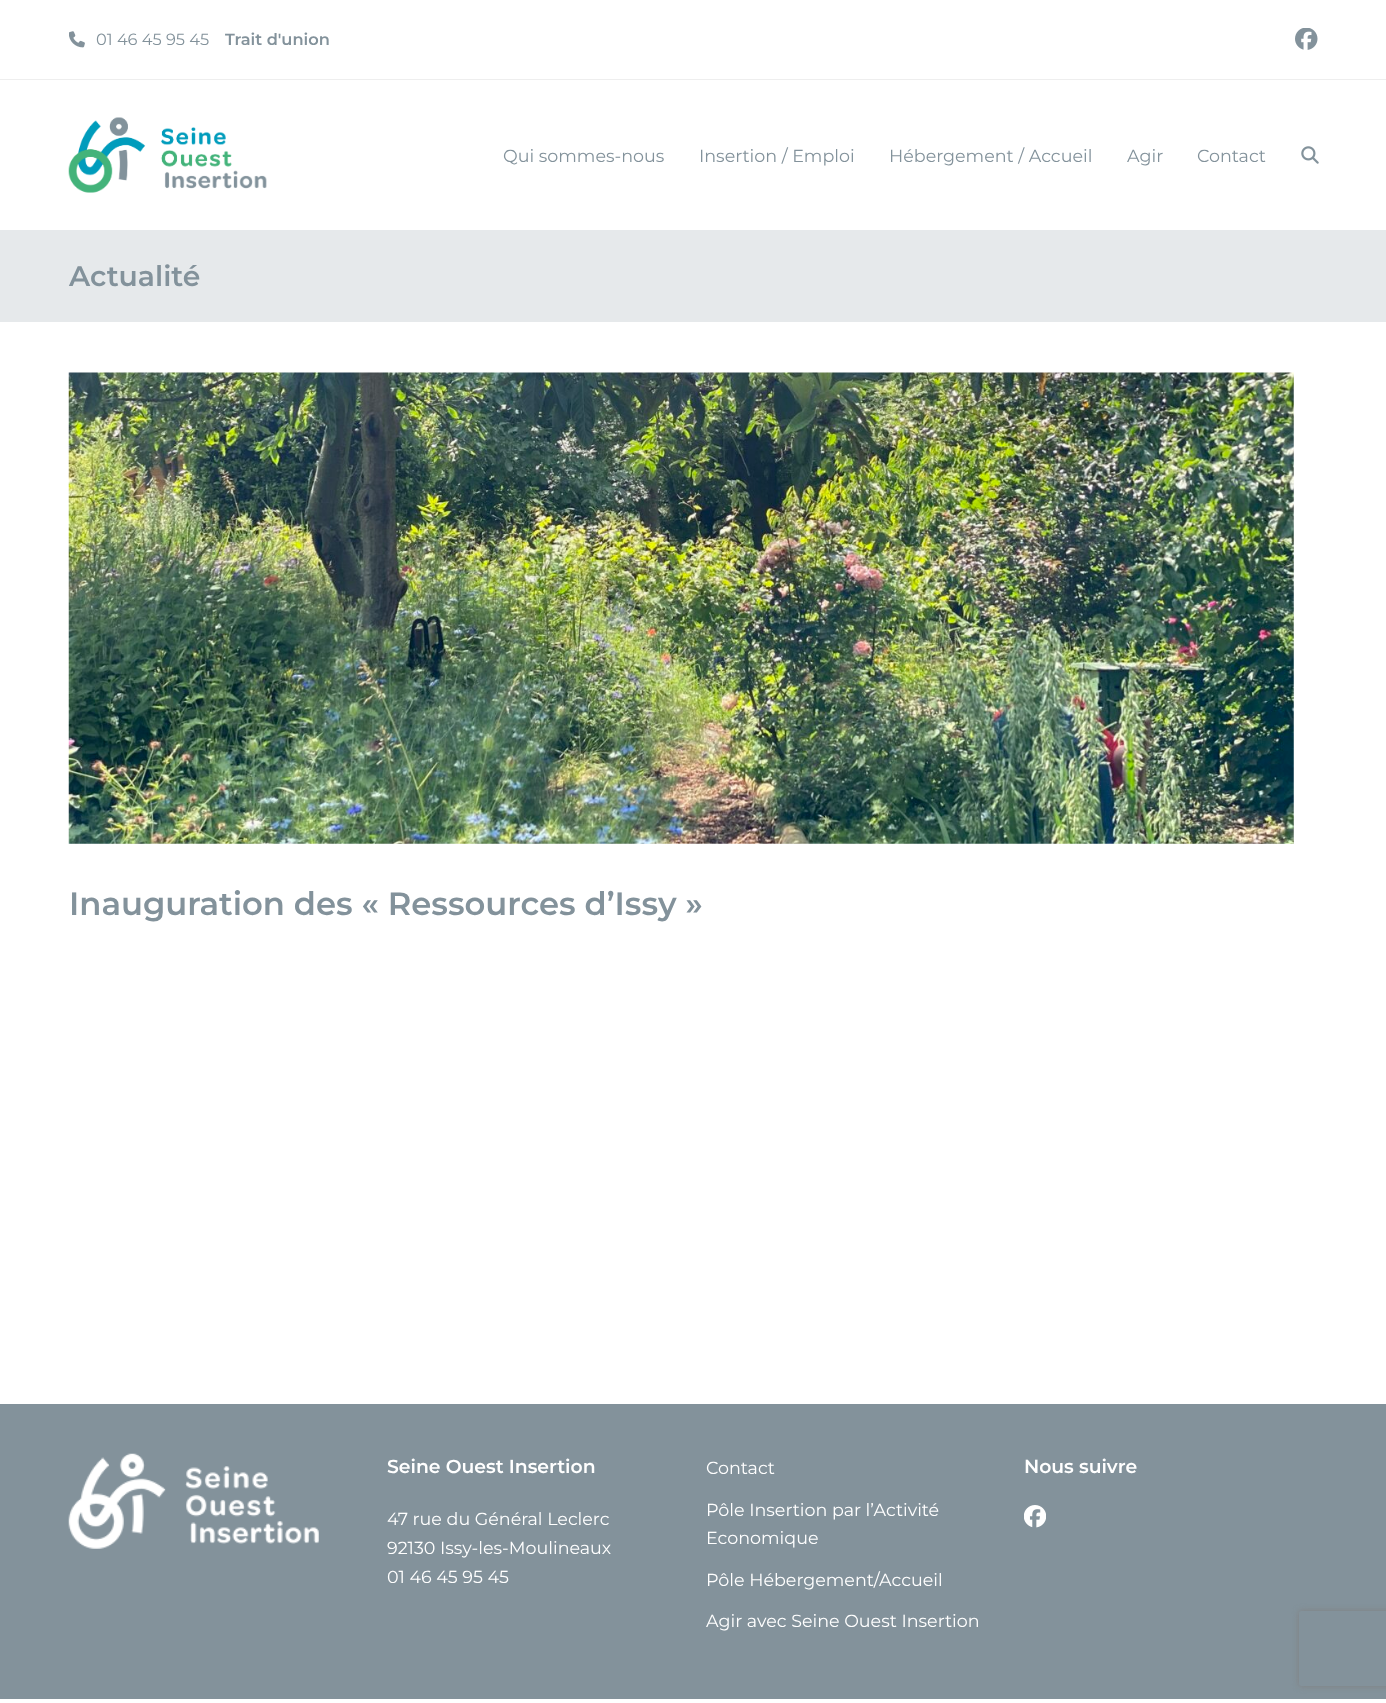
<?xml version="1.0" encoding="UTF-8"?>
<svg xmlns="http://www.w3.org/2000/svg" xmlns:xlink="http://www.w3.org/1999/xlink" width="1386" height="1703">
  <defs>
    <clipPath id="clip1"><path d="M 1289 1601 h 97 v 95 h -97 z m 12.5 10 h 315 c 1.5 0 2.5 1 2.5 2.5 v 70 c 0 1.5 -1 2.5 -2.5 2.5 h -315 c -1.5 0 -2.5 -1 -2.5 -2.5 v -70 c 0 -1.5 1 -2.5 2.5 -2.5 z" clip-rule="evenodd" /></clipPath>
  </defs>
  <rect width="100%" height="100%" fill="#ffffff" />
  <rect y="79" width="1386" height="1" fill="#eeeeee" />
  <image x="69" y="31" width="16" height="17" xlink:href="image1.png" />
  <image x="1295" y="28" width="23" height="22" xlink:href="image2.png" />
  <image x="68" y="117" width="199" height="76" xlink:href="image3.png" />
  <image x="1301" y="146" width="18" height="18" xlink:href="image4.png" />
  <rect y="230" width="1386" height="92" fill="#e6e9eb" />
  <image x="68" y="372" width="1226" height="472" xlink:href="image5.png" />
  <rect y="1404" width="1386" height="295" fill="#83929b" />
  <image x="68" y="1453" width="251" height="96" xlink:href="image6.png" />
  <image x="1024" y="1505" width="22" height="23" xlink:href="image7.png" />
  <g clip-path="url(#clip1)">
    <rect x="1299" y="1611" width="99" height="75" rx="2.5" fill="#808080" filter="blur(3px)" />
  </g>
  <text x="96" y="45" style="font-family: Montserrat; font-size: 16.25px; fill: #83929b">01 46 45 95 45</text>
  <text x="225" y="45" style="font-family: Montserrat; font-size: 16.25px; font-weight: 600; fill: #83929b">Trait d'union</text>
  <text x="503" y="162" style="font-family: Montserrat; font-size: 17.5px; fill: #83929b">Qui sommes-nous</text>
  <text x="699" y="162" style="font-family: Montserrat; font-size: 17.5px; fill: #83929b">Insertion / Emploi</text>
  <text x="889" y="162" style="font-family: Montserrat; font-size: 17.5px; fill: #83929b">Hébergement / Accueil</text>
  <text x="1127" y="162" style="font-family: Montserrat; font-size: 17.5px; fill: #83929b">Agir</text>
  <text x="1197" y="162" style="font-family: Montserrat; font-size: 17.5px; fill: #83929b">Contact</text>
  <text x="69" y="286" style="font-family: Montserrat; font-size: 28.25px; font-weight: 600; fill: #83929b">Actualité</text>
  <text x="69" y="915" style="font-family: Montserrat; font-size: 32.25px; font-weight: 600; fill: #83929b">Inauguration des « Ressources d’Issy »</text>
  <text x="387" y="1473" style="font-family: Montserrat; font-size: 18.8px; font-weight: 600; fill: #ffffff">Seine Ouest Insertion</text>
  <text x="387" y="1525" style="font-family: Montserrat; font-size: 17.5px; fill: #ffffff">47 rue du Général Leclerc</text>
  <text x="387" y="1554" style="font-family: Montserrat; font-size: 17.5px; fill: #ffffff">92130 Issy-les-Moulineaux</text>
  <text x="387" y="1583" style="font-family: Montserrat; font-size: 17.5px; fill: #ffffff">01 46 45 95 45</text>
  <text x="706" y="1474" style="font-family: Montserrat; font-size: 17.5px; fill: #ffffff">Contact</text>
  <text x="706" y="1516" style="font-family: Montserrat; font-size: 17.5px; fill: #ffffff">Pôle Insertion par l’Activité</text>
  <text x="706" y="1544" style="font-family: Montserrat; font-size: 17.5px; fill: #ffffff">Economique</text>
  <text x="706" y="1586" style="font-family: Montserrat; font-size: 17.5px; fill: #ffffff">Pôle Hébergement/Accueil</text>
  <text x="706" y="1627" style="font-family: Montserrat; font-size: 17.5px; fill: #ffffff">Agir avec Seine Ouest Insertion</text>
  <text x="1024" y="1473" style="font-family: Montserrat; font-size: 18.8px; font-weight: 600; fill: #ffffff">Nous suivre</text>
</svg>
